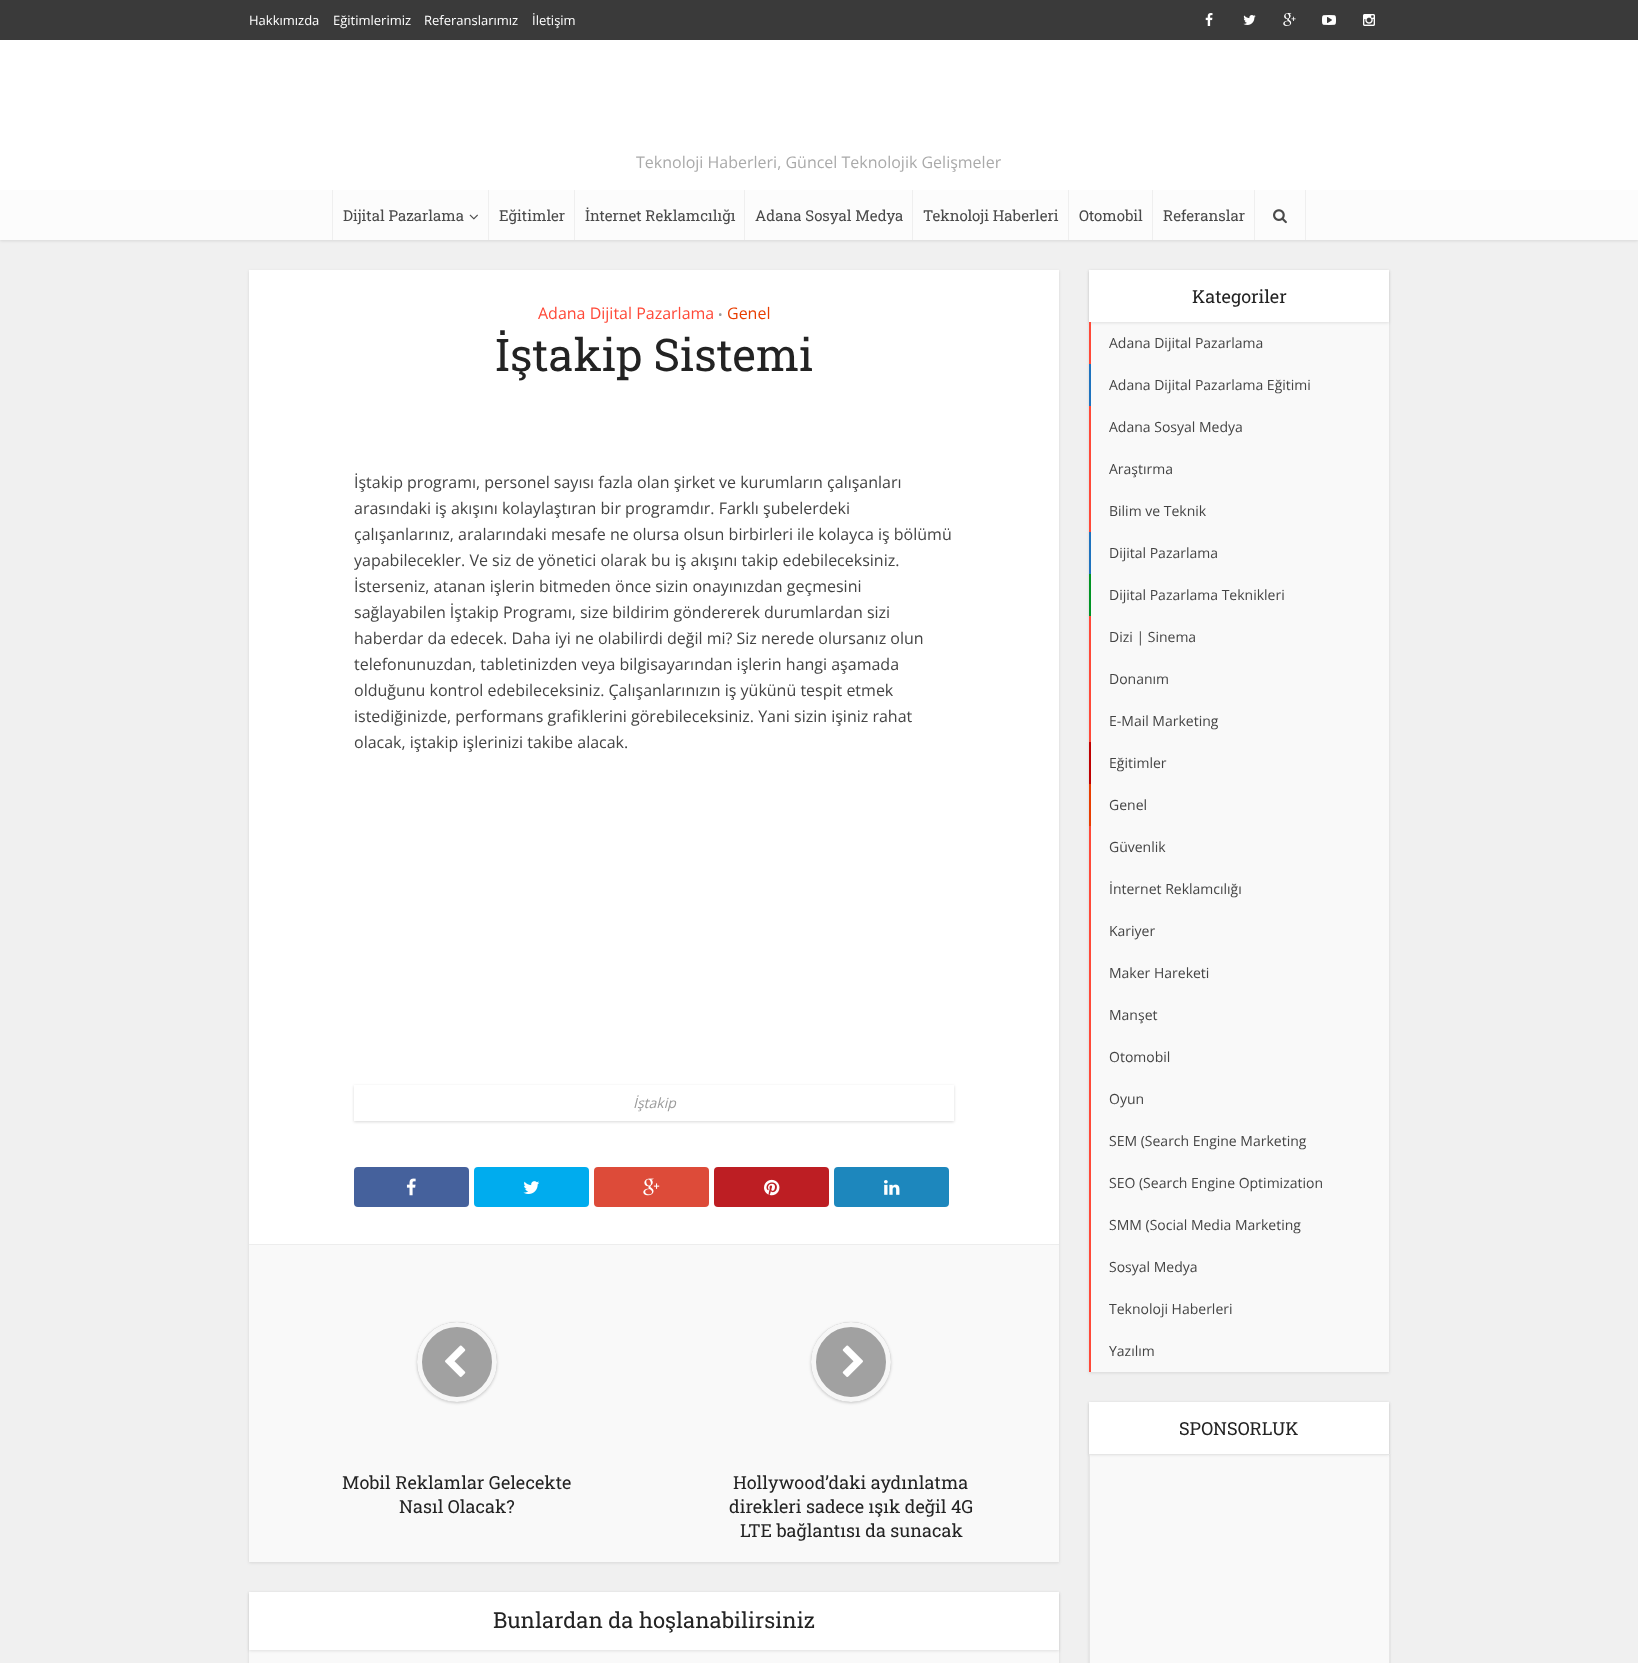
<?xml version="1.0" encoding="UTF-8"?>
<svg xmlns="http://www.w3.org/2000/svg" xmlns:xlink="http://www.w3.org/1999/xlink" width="1638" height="1663">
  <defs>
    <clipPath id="clip1"><path d="M 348 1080 h 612 v 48 h -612 z m 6 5 h 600 v 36 h -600 z" clip-rule="evenodd" /></clipPath>
    <clipPath id="clip2"><path d="M 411 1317 h 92 v 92 h -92 z m 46 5 c 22 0 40 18 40 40 c 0 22 -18 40 -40 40 c -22 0 -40 -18 -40 -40 c 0 -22 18 -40 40 -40 z" clip-rule="evenodd" /></clipPath>
    <clipPath id="clip3"><path d="M 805 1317 h 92 v 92 h -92 z m 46 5 c 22 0 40 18 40 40 c 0 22 -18 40 -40 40 c -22 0 -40 -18 -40 -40 c 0 -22 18 -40 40 -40 z" clip-rule="evenodd" /></clipPath>
  </defs>
  <rect width="100%" height="100%" fill="#f0f0f0" />
  <rect y="1" width="1638" height="240" fill="#000000" fill-opacity="0.1" filter="blur(1.5px)" />
  <rect y="40" width="1638" height="150" fill="#ffffff" />
  <rect width="1638" height="40" fill="#3a3a3a" />
  <image x="1205" y="13" width="8" height="13" xlink:href="image1.png" />
  <image x="1243" y="15" width="13" height="10" xlink:href="image2.png" />
  <image x="1283" y="13" width="13" height="13" xlink:href="image3.png" />
  <image x="1322" y="15" width="14" height="10" xlink:href="image4.png" />
  <image x="1363" y="14" width="12" height="12" xlink:href="image5.png" />
  <rect y="190" width="1638" height="50" fill="#fcfcfc" />
  <rect x="332" y="190" width="1" height="50" fill="#efefef" />
  <image x="469" y="214" width="9" height="6" xlink:href="image6.png" />
  <rect x="488" y="190" width="1" height="50" fill="#efefef" />
  <rect x="574" y="190" width="1" height="50" fill="#efefef" />
  <rect x="744" y="190" width="1" height="50" fill="#efefef" />
  <rect x="912" y="190" width="1" height="50" fill="#efefef" />
  <rect x="1068" y="190" width="1" height="50" fill="#efefef" />
  <rect x="1152" y="190" width="1" height="50" fill="#efefef" />
  <rect x="1305" y="190" width="1" height="50" fill="#efefef" />
  <rect x="1254" y="190" width="1" height="50" fill="#efefef" />
  <image x="1273" y="209" width="14" height="15" xlink:href="image7.png" />
  <rect x="249" y="271" width="810" height="1292" fill="#000000" fill-opacity="0.1" filter="blur(1.5px)" />
  <rect x="249" y="270" width="810" height="974" fill="#ffffff" />
  <g clip-path="url(#clip1)">
    <rect x="354" y="1086" width="600" height="36" fill="#000000" fill-opacity="0.15" filter="blur(1.5px)" />
  </g>
  <rect x="354" y="1167" width="115" height="40" rx="4" fill="#45619c" />
  <image x="406" y="1178" width="10" height="18" xlink:href="image8.png" />
  <rect x="474" y="1167" width="115" height="40" rx="4" fill="#00acee" />
  <image x="523" y="1181" width="17" height="13" xlink:href="image9.png" />
  <rect x="594" y="1167" width="115" height="40" rx="4" fill="#dd4b39" />
  <image x="643" y="1178" width="17" height="18" xlink:href="image10.png" />
  <rect x="714" y="1167" width="115" height="40" rx="4" fill="#bd1e23" />
  <image x="764" y="1179" width="16" height="17" xlink:href="image11.png" />
  <rect x="834" y="1167" width="115" height="40" rx="4" fill="#1d87bd" />
  <image x="884" y="1180" width="16" height="15" xlink:href="image12.png" />
  <rect x="249" y="1245" width="810" height="317" fill="#f9f9f9" />
  <rect x="249" y="1244" width="810" height="1" fill="#ededed" />
  <g clip-path="url(#clip2)">
    <rect x="417" y="1323" width="80" height="80" rx="40" fill="#000000" fill-opacity="0.2" filter="blur(1.5px)" />
  </g>
  <circle cx="457" cy="1362" r="40" fill="#4a4a4a" fill-opacity="0.5" />
  <circle cx="457" cy="1362" r="37.5" fill="none" stroke="#ffffff" stroke-opacity="0.9" stroke-width="5" />
  <image x="445" y="1345" width="21" height="32" xlink:href="image13.png" />
  <g clip-path="url(#clip3)">
    <rect x="811" y="1323" width="80" height="80" rx="40" fill="#000000" fill-opacity="0.2" filter="blur(1.5px)" />
  </g>
  <circle cx="851" cy="1362" r="40" fill="#4a4a4a" fill-opacity="0.5" />
  <circle cx="851" cy="1362" r="37.5" fill="none" stroke="#ffffff" stroke-opacity="0.9" stroke-width="5" />
  <image x="842" y="1345" width="21" height="32" xlink:href="image14.png" />
  <rect x="249" y="1593" width="810" height="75" fill="#000000" fill-opacity="0.1" filter="blur(1.5px)" />
  <rect x="249" y="1650" width="810" height="13" fill="#f9f9f9" />
  <rect x="249" y="1593" width="810" height="58" fill="#000000" fill-opacity="0.1" filter="blur(1.5px)" />
  <rect x="249" y="1592" width="810" height="58" fill="#ffffff" />
  <rect x="1089" y="271" width="300" height="1102" fill="#000000" fill-opacity="0.1" filter="blur(1.5px)" />
  <rect x="1091" y="322" width="298" height="1050" fill="#f9f9f9" />
  <rect x="1089" y="271" width="300" height="52" fill="#000000" fill-opacity="0.1" filter="blur(1.5px)" />
  <rect x="1089" y="270" width="300" height="52" fill="#ffffff" />
  <rect x="1089" y="322" width="2" height="42" fill="#ff4938" />
  <rect x="1089" y="364" width="2" height="42" fill="#1e73be" />
  <rect x="1089" y="406" width="2" height="126" fill="#ff4938" />
  <rect x="1089" y="532" width="2" height="42" fill="#1e73be" />
  <rect x="1089" y="574" width="2" height="42" fill="#009324" />
  <rect x="1089" y="616" width="2" height="126" fill="#ff4938" />
  <rect x="1089" y="742" width="2" height="42" fill="#bf0000" />
  <rect x="1089" y="784" width="2" height="42" fill="#e83d00" />
  <rect x="1089" y="826" width="2" height="546" fill="#ff4938" />
  <rect x="1089" y="1403" width="300" height="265" fill="#000000" fill-opacity="0.1" filter="blur(1.5px)" />
  <rect x="1090" y="1455" width="299" height="208" fill="#f9f9f9" />
  <rect x="1089" y="1403" width="300" height="52" fill="#000000" fill-opacity="0.1" filter="blur(1.5px)" />
  <rect x="1089" y="1402" width="300" height="52" fill="#ffffff" />
  <rect x="1089.5" y="1454.5" width="301" height="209" fill="none" stroke="#e6e6e6" />
  <text x="249" y="25" style="font-family: Open Sans; font-size: 13px; fill: #ffffff">Hakkımızda</text>
  <text x="333" y="25" style="font-family: Open Sans; font-size: 13px; fill: #ffffff">Eğitimlerimiz</text>
  <text x="424" y="25" style="font-family: Open Sans; font-size: 13px; fill: #ffffff">Referanslarımız</text>
  <text x="532" y="25" style="font-family: Open Sans; font-size: 13px; fill: #ffffff">İletişim</text>
  <text x="636" y="168" style="font-family: Open Sans; font-size: 16px; fill: #aaaaaa">Teknoloji Haberleri, Güncel Teknolojik Gelişmeler</text>
  <text x="343" y="221" style="font-family: Roboto Slab; font-size: 15px; fill: #4a4a4a">Dijital Pazarlama</text>
  <text x="499" y="221" style="font-family: Roboto Slab; font-size: 15px; fill: #4a4a4a">Eğitimler</text>
  <text x="585" y="221" style="font-family: Roboto Slab; font-size: 15px; fill: #4a4a4a">İnternet Reklamcılığı</text>
  <text x="755" y="221" style="font-family: Roboto Slab; font-size: 15px; fill: #4a4a4a">Adana Sosyal Medya</text>
  <text x="923" y="221" style="font-family: Roboto Slab; font-size: 15px; fill: #4a4a4a">Teknoloji Haberleri</text>
  <text x="1079" y="221" style="font-family: Roboto Slab; font-size: 15px; fill: #4a4a4a">Otomobil</text>
  <text x="1163" y="221" style="font-family: Roboto Slab; font-size: 15px; fill: #4a4a4a">Referanslar</text>
  <text x="538" y="319" style="font-family: Open Sans; font-size: 16px; fill: #ff4938">Adana Dijital Pazarlama</text>
  <text x="718" y="319" style="font-family: Open Sans; font-size: 12px; fill: #9b9b9b">•</text>
  <text x="727" y="319" style="font-family: Open Sans; font-size: 16px; fill: #e83d00">Genel</text>
  <text x="495" y="371" style="font-family: Roboto Slab; font-size: 45px; fill: #232323">İştakip Sistemi</text>
  <text x="354" y="488" style="font-family: Open Sans; font-size: 16px; fill: #444444">İştakip programı, personel sayısı fazla olan şirket ve kurumların çalışanları</text>
  <text x="354" y="514" style="font-family: Open Sans; font-size: 16px; fill: #444444">arasındaki iş akışını kolaylaştıran bir programdır. Farklı şubelerdeki</text>
  <text x="354" y="540" style="font-family: Open Sans; font-size: 16px; fill: #444444">çalışanlarınız, aralarındaki mesafe ne olursa olsun birbirleri ile kolayca iş bölümü</text>
  <text x="354" y="566" style="font-family: Open Sans; font-size: 16px; fill: #444444">yapabilecekler. Ve siz de yönetici olarak bu iş akışını takip edebileceksiniz.</text>
  <text x="354" y="592" style="font-family: Open Sans; font-size: 16px; fill: #444444">İsterseniz, atanan işlerin bitmeden önce sizin onayınızdan geçmesini</text>
  <text x="354" y="618" style="font-family: Open Sans; font-size: 16px; fill: #444444">sağlayabilen İştakip Programı, size bildirim göndererek durumlardan sizi</text>
  <text x="354" y="644" style="font-family: Open Sans; font-size: 16px; fill: #444444">haberdar da edecek. Daha iyi ne olabilirdi değil mi? Siz nerede olursanız olun</text>
  <text x="354" y="670" style="font-family: Open Sans; font-size: 16px; fill: #444444">telefonunuzdan, tabletinizden veya bilgisayarından işlerin hangi aşamada</text>
  <text x="354" y="696" style="font-family: Open Sans; font-size: 16px; fill: #444444">olduğunu kontrol edebileceksiniz. Çalışanlarınızın iş yükünü tespit etmek</text>
  <text x="354" y="722" style="font-family: Open Sans; font-size: 16px; fill: #444444">istediğinizde, performans grafiklerini görebileceksiniz. Yani sizin işiniz rahat</text>
  <text x="354" y="748" style="font-family: Open Sans; font-size: 16px; fill: #444444">olacak, iştakip işlerinizi takibe alacak.</text>
  <text x="633" y="1108" style="font-family: Open Sans; font-size: 14px; font-style: italic; fill: #9b9b9b">İştakip</text>
  <text x="342" y="1489" style="font-family: Roboto Slab; font-size: 18px; fill: #232323">Mobil Reklamlar Gelecekte</text>
  <text x="399" y="1513" style="font-family: Roboto Slab; font-size: 18px; fill: #232323">Nasıl Olacak?</text>
  <text x="733" y="1489" style="font-family: Roboto Slab; font-size: 18px; fill: #232323">Hollywood’daki aydınlatma</text>
  <text x="729" y="1513" style="font-family: Roboto Slab; font-size: 18px; fill: #232323">direkleri sadece ışık değil 4G</text>
  <text x="740" y="1537" style="font-family: Roboto Slab; font-size: 18px; fill: #232323">LTE bağlantısı da sunacak</text>
  <text x="493" y="1628" style="font-family: Roboto Slab; font-size: 22px; fill: #232323">Bunlardan da hoşlanabilirsiniz</text>
  <text x="1192" y="303" style="font-family: Roboto Slab; font-size: 18px; fill: #232323">Kategoriler</text>
  <text x="1109" y="348" style="font-family: Open Sans; font-size: 14px; fill: #444444">Adana Dijital Pazarlama</text>
  <text x="1109" y="390" style="font-family: Open Sans; font-size: 14px; fill: #444444">Adana Dijital Pazarlama Eğitimi</text>
  <text x="1109" y="432" style="font-family: Open Sans; font-size: 14px; fill: #444444">Adana Sosyal Medya</text>
  <text x="1109" y="474" style="font-family: Open Sans; font-size: 14px; fill: #444444">Araştırma</text>
  <text x="1109" y="516" style="font-family: Open Sans; font-size: 14px; fill: #444444">Bilim ve Teknik</text>
  <text x="1109" y="558" style="font-family: Open Sans; font-size: 14px; fill: #444444">Dijital Pazarlama</text>
  <text x="1109" y="600" style="font-family: Open Sans; font-size: 14px; fill: #444444">Dijital Pazarlama Teknikleri</text>
  <text x="1109" y="642" style="font-family: Open Sans; font-size: 14px; fill: #444444">Dizi | Sinema</text>
  <text x="1109" y="684" style="font-family: Open Sans; font-size: 14px; fill: #444444">Donanım</text>
  <text x="1109" y="726" style="font-family: Open Sans; font-size: 14px; fill: #444444">E-Mail Marketing</text>
  <text x="1109" y="768" style="font-family: Open Sans; font-size: 14px; fill: #444444">Eğitimler</text>
  <text x="1109" y="810" style="font-family: Open Sans; font-size: 14px; fill: #444444">Genel</text>
  <text x="1109" y="852" style="font-family: Open Sans; font-size: 14px; fill: #444444">Güvenlik</text>
  <text x="1109" y="894" style="font-family: Open Sans; font-size: 14px; fill: #444444">İnternet Reklamcılığı</text>
  <text x="1109" y="936" style="font-family: Open Sans; font-size: 14px; fill: #444444">Kariyer</text>
  <text x="1109" y="978" style="font-family: Open Sans; font-size: 14px; fill: #444444">Maker Hareketi</text>
  <text x="1109" y="1020" style="font-family: Open Sans; font-size: 14px; fill: #444444">Manşet</text>
  <text x="1109" y="1062" style="font-family: Open Sans; font-size: 14px; fill: #444444">Otomobil</text>
  <text x="1109" y="1104" style="font-family: Open Sans; font-size: 14px; fill: #444444">Oyun</text>
  <text x="1109" y="1146" style="font-family: Open Sans; font-size: 14px; fill: #444444">SEM (Search Engine Marketing</text>
  <text x="1109" y="1188" style="font-family: Open Sans; font-size: 14px; fill: #444444">SEO (Search Engine Optimization</text>
  <text x="1109" y="1230" style="font-family: Open Sans; font-size: 14px; fill: #444444">SMM (Social Media Marketing</text>
  <text x="1109" y="1272" style="font-family: Open Sans; font-size: 14px; fill: #444444">Sosyal Medya</text>
  <text x="1109" y="1314" style="font-family: Open Sans; font-size: 14px; fill: #444444">Teknoloji Haberleri</text>
  <text x="1109" y="1356" style="font-family: Open Sans; font-size: 14px; fill: #444444">Yazılım</text>
  <text x="1179" y="1435" style="font-family: Roboto Slab; font-size: 18px; fill: #232323">SPONSORLUK</text>
</svg>
